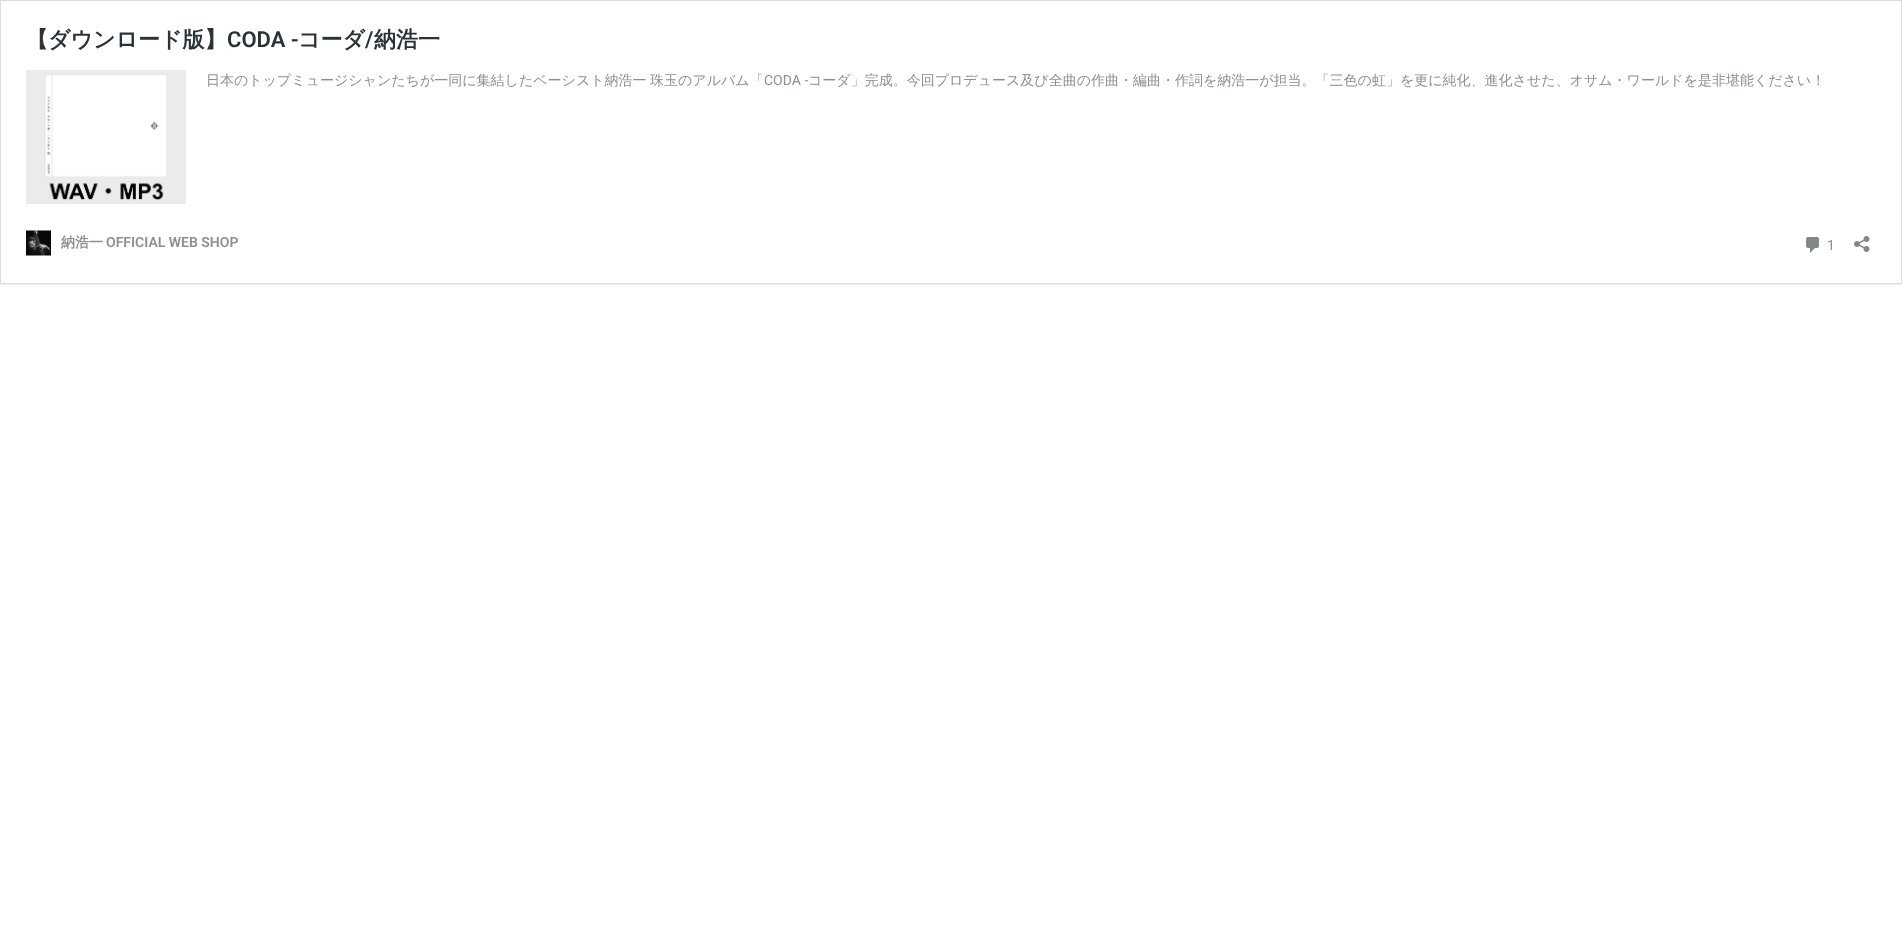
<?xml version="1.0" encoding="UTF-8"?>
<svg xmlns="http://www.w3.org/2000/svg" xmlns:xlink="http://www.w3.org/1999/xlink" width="1902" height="939">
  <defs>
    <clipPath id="clip1"><rect x="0" y="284" width="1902" height="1" /></clipPath>
  </defs>
  <rect width="100%" height="100%" fill="#ffffff" />
  <g clip-path="url(#clip1)">
    <rect y="1" width="1902" height="284" fill="#000000" fill-opacity="0.05" filter="blur(0.5px)" />
  </g>
  <rect x="0.5" y="0.5" width="1901" height="283" fill="none" stroke="#dcdcde" />
  <image x="26" y="70" width="160" height="134" xlink:href="image1.png" />
  <image x="26" y="230" width="25" height="26" xlink:href="image2.png" />
  <image x="1806" y="237" width="13" height="16" xlink:href="image3.png" />
  <image x="1854" y="236" width="16" height="16" xlink:href="image4.png" />
  <text x="26" y="47" style="font-family: WenQuanYi Zen Hei; font-size: 22px; font-weight: bold; fill: #2c3338">【ダウンロード版】</text>
  <text x="227" y="47" style="font-family: Roboto; font-size: 22px; font-weight: 600; fill: #2c3338">CODA -</text>
  <text x="298" y="47" style="font-family: WenQuanYi Zen Hei; font-size: 22px; font-weight: bold; fill: #2c3338">コーダ</text>
  <text x="365" y="47" style="font-family: Roboto; font-size: 22px; font-weight: 600; fill: #2c3338">/</text>
  <text x="374" y="47" style="font-family: WenQuanYi Zen Hei; font-size: 22px; font-weight: bold; fill: #2c3338">納浩一</text>
  <text x="206" y="85" style="font-family: WenQuanYi Zen Hei; font-size: 14px; font-weight: 500; fill: #8c8f94">日本のトップミュージシャンたちが一同に集結したベーシスト納浩一</text>
  <text x="650" y="85" style="font-family: WenQuanYi Zen Hei; font-size: 14px; font-weight: 500; fill: #8c8f94">珠玉のアルバム「</text>
  <text x="764" y="85" style="font-family: Roboto; font-size: 14px; fill: #8c8f94">CODA -</text>
  <text x="808" y="85" style="font-family: WenQuanYi Zen Hei; font-size: 14px; font-weight: 500; fill: #8c8f94">コーダ」完成。今回プロデュース及び全曲の作曲・編曲・作詞を納浩一が担当。「三色の虹」を更に純化、進化させた、オサム・ワールドを是非堪能ください！</text>
  <text x="61" y="247" style="font-family: WenQuanYi Zen Hei; font-size: 14px; font-weight: bold; fill: #8c8f94">納浩一</text>
  <text x="106" y="247" style="font-family: Roboto; font-size: 14px; font-weight: 600; fill: #8c8f94">OFFICIAL WEB SHOP</text>
  <text x="1827" y="250" style="font-family: Roboto; font-size: 14px; fill: #8c8f94">1</text>
</svg>
